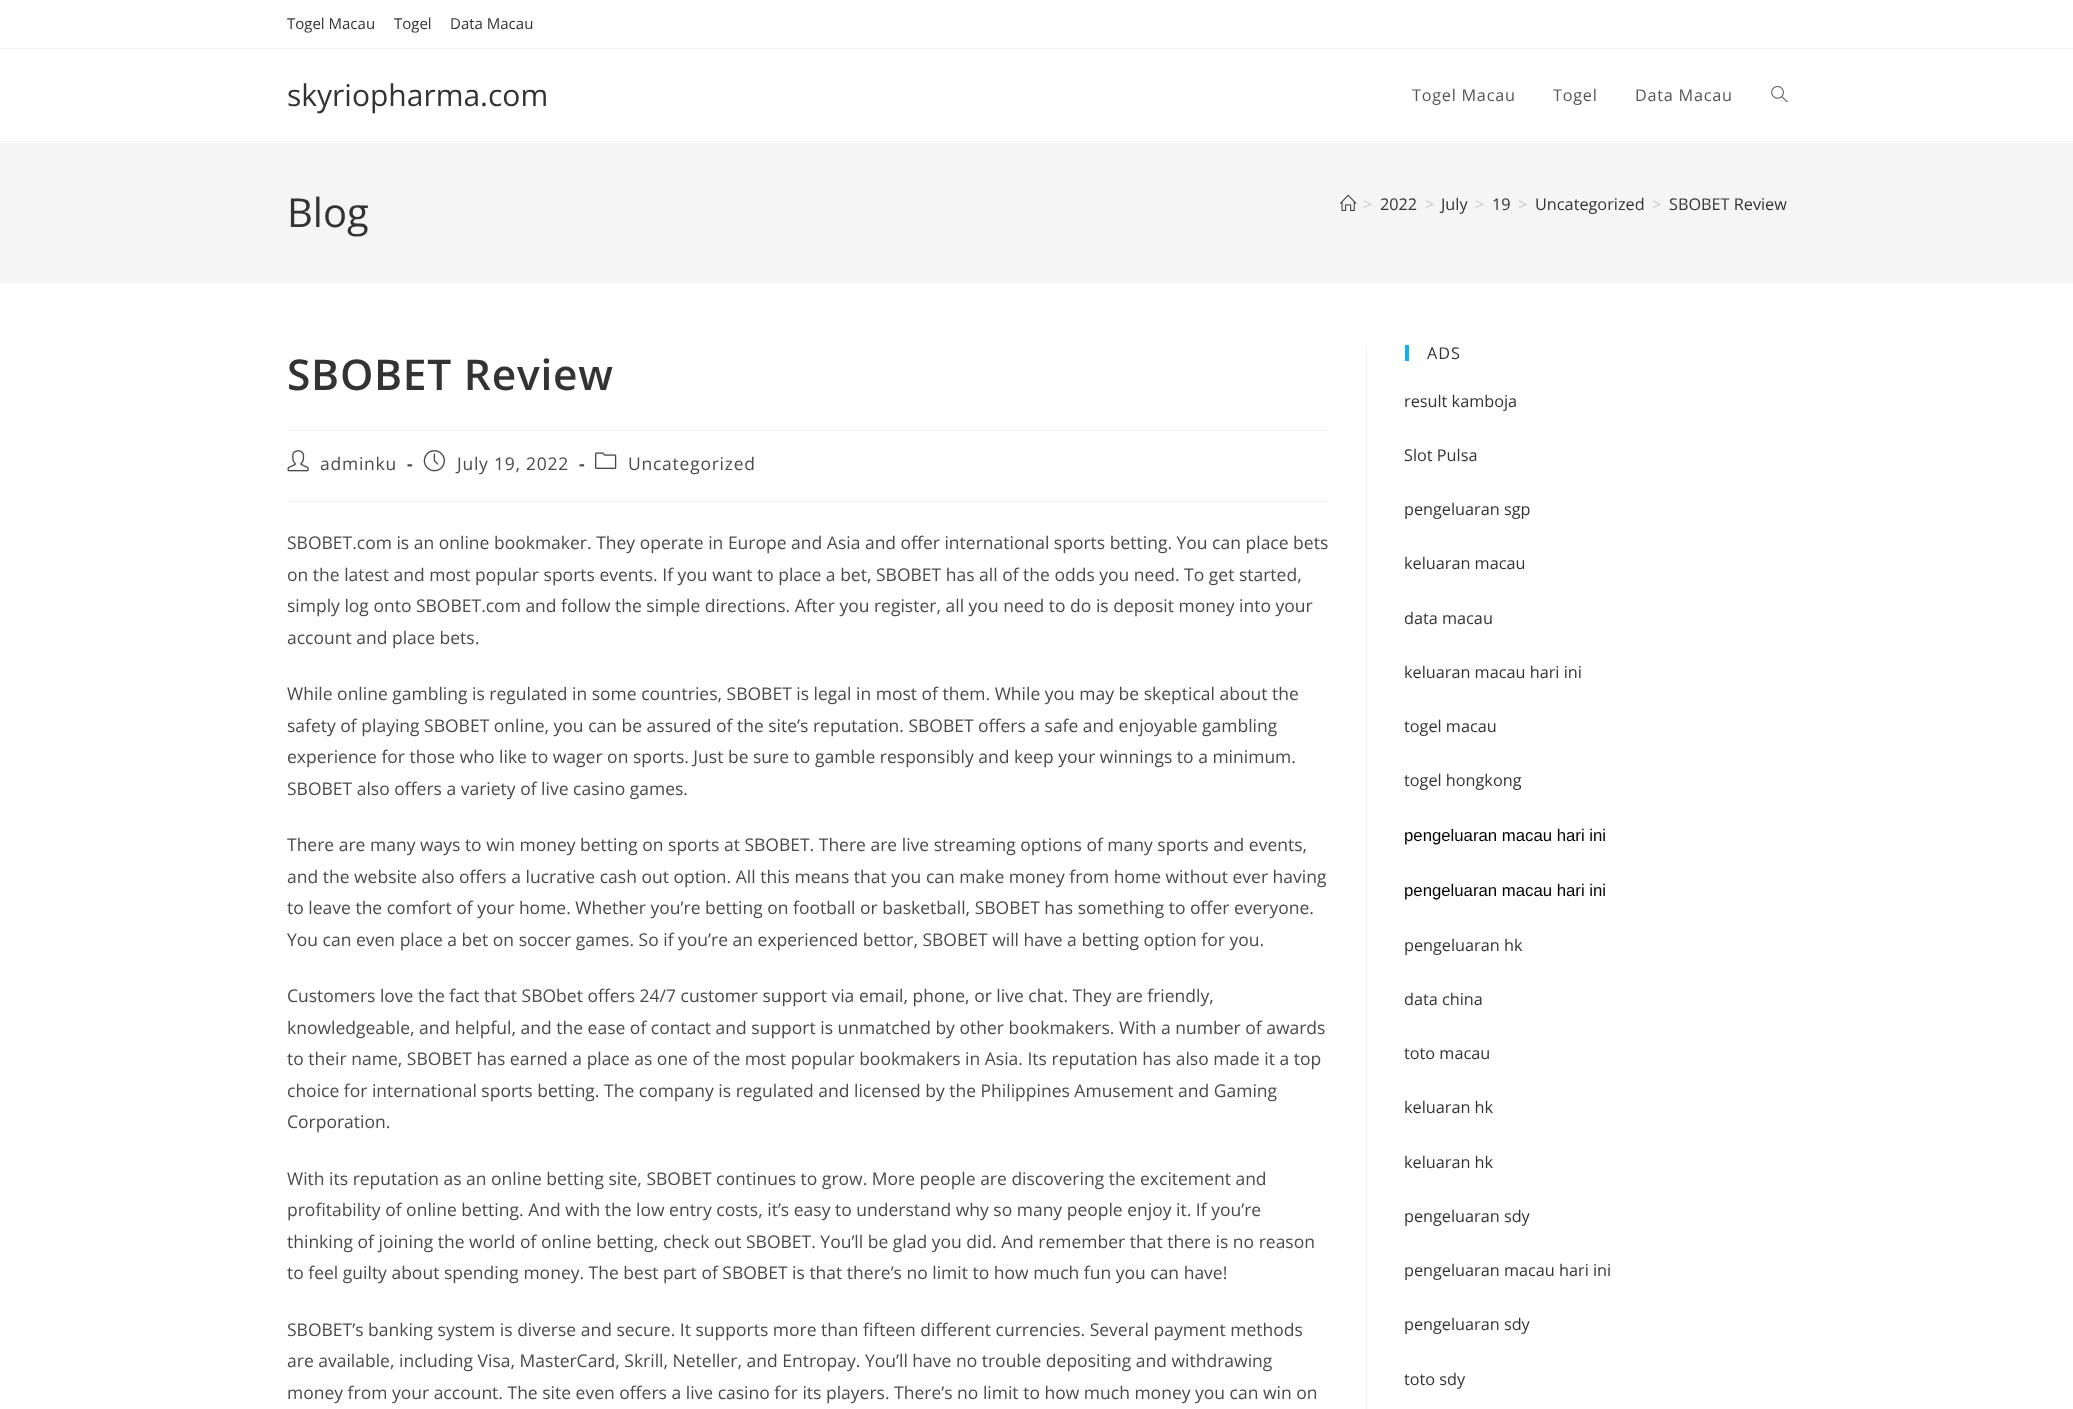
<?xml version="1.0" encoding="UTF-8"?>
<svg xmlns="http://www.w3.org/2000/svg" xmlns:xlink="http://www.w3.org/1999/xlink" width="2073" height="1409">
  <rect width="100%" height="100%" fill="#ffffff" />
  <rect y="48" width="2073" height="1" fill="#f1f1f1" />
  <rect y="141" width="2073" height="1" fill="#f1f1f1" />
  <image x="1771" y="86" width="17" height="17" xlink:href="image1.png" />
  <rect y="143" width="2073" height="140" fill="#f5f5f5" />
  <image x="1340" y="194" width="17" height="17" xlink:href="image2.png" />
  <rect x="1366" y="345" width="1" height="1064" fill="#f1f1f1" />
  <rect x="288" y="430" width="1041" height="1" fill="#f1f1f1" />
  <rect x="288" y="501" width="1041" height="1" fill="#f1f1f1" />
  <image x="287" y="450" width="22" height="22" xlink:href="image3.png" />
  <image x="423" y="450" width="22" height="22" xlink:href="image4.png" />
  <image x="595" y="452" width="22" height="17" xlink:href="image5.png" />
  <rect x="1405" y="345" width="4" height="16" fill="#13aff0" />
  <text x="287" y="29" style="font-family: Open Sans; font-size: 15px; fill: #333333">Togel Macau</text>
  <text x="394" y="29" style="font-family: Open Sans; font-size: 15px; fill: #333333">Togel</text>
  <text x="450" y="29" style="font-family: Open Sans; font-size: 15px; fill: #333333">Data Macau</text>
  <text x="287" y="106" style="font-family: Open Sans; font-size: 30px; fill: #333333">skyriopharma.com</text>
  <text x="1412" y="101" style="font-family: Open Sans; font-size: 16.25px; letter-spacing: 0.75px; fill: #555555">Togel Macau</text>
  <text x="1553" y="101" style="font-family: Open Sans; font-size: 16.25px; letter-spacing: 0.75px; fill: #555555">Togel</text>
  <text x="1635" y="101" style="font-family: Open Sans; font-size: 16.25px; letter-spacing: 0.75px; fill: #555555">Data Macau</text>
  <text x="287" y="227" style="font-family: Open Sans; font-size: 40px; fill: #333333">Blog</text>
  <text x="1363" y="210" style="font-family: Open Sans; font-size: 16.25px; fill: #c6c6c6">&gt;</text>
  <text x="1380" y="210" style="font-family: Open Sans; font-size: 16.25px; fill: #333333">2022</text>
  <text x="1425" y="210" style="font-family: Open Sans; font-size: 16.25px; fill: #c6c6c6">&gt;</text>
  <text x="1441" y="210" style="font-family: Open Sans; font-size: 16.25px; fill: #333333">July</text>
  <text x="1475" y="210" style="font-family: Open Sans; font-size: 16.25px; fill: #c6c6c6">&gt;</text>
  <text x="1492" y="210" style="font-family: Open Sans; font-size: 16.25px; fill: #333333">19</text>
  <text x="1518" y="210" style="font-family: Open Sans; font-size: 16.25px; fill: #c6c6c6">&gt;</text>
  <text x="1535" y="210" style="font-family: Open Sans; font-size: 16.25px; fill: #333333">Uncategorized</text>
  <text x="1652" y="210" style="font-family: Open Sans; font-size: 16.25px; fill: #c6c6c6">&gt;</text>
  <text x="1669" y="210" style="font-family: Open Sans; font-size: 16.25px; fill: #333333">SBOBET Review</text>
  <text x="287" y="390" style="font-family: Open Sans; font-size: 42.5px; font-weight: 600; letter-spacing: 0.75px; fill: #333333">SBOBET Review</text>
  <text x="320" y="470" style="font-family: Open Sans; font-size: 17.5px; letter-spacing: 0.75px; fill: #4a4a4a">adminku</text>
  <text x="407" y="470" style="font-family: Open Sans; font-size: 17.5px; font-weight: bold; letter-spacing: 0.75px; fill: #4a4a4a">-</text>
  <text x="457" y="470" style="font-family: Open Sans; font-size: 17.5px; letter-spacing: 0.75px; fill: #4a4a4a">July 19, 2022</text>
  <text x="579" y="470" style="font-family: Open Sans; font-size: 17.5px; font-weight: bold; letter-spacing: 0.75px; fill: #4a4a4a">-</text>
  <text x="628" y="470" style="font-family: Open Sans; font-size: 17.5px; letter-spacing: 0.75px; fill: #4a4a4a">Uncategorized</text>
  <text x="287" y="549" style="font-family: Open Sans; font-size: 17.5px; fill: #4a4a4a">SBOBET.com is an online bookmaker. They operate in Europe and Asia and offer international sports betting. You can place bets</text>
  <text x="287" y="581" style="font-family: Open Sans; font-size: 17.5px; fill: #4a4a4a">on the latest and most popular sports events. If you want to place a bet, SBOBET has all of the odds you need. To get started,</text>
  <text x="287" y="612" style="font-family: Open Sans; font-size: 17.5px; fill: #4a4a4a">simply log onto SBOBET.com and follow the simple directions. After you register, all you need to do is deposit money into your</text>
  <text x="287" y="644" style="font-family: Open Sans; font-size: 17.5px; fill: #4a4a4a">account and place bets.</text>
  <text x="287" y="700" style="font-family: Open Sans; font-size: 17.5px; fill: #4a4a4a">While online gambling is regulated in some countries, SBOBET is legal in most of them. While you may be skeptical about the</text>
  <text x="287" y="732" style="font-family: Open Sans; font-size: 17.5px; fill: #4a4a4a">safety of playing SBOBET online, you can be assured of the site’s reputation. SBOBET offers a safe and enjoyable gambling</text>
  <text x="287" y="763" style="font-family: Open Sans; font-size: 17.5px; fill: #4a4a4a">experience for those who like to wager on sports. Just be sure to gamble responsibly and keep your winnings to a minimum.</text>
  <text x="287" y="795" style="font-family: Open Sans; font-size: 17.5px; fill: #4a4a4a">SBOBET also offers a variety of live casino games.</text>
  <text x="287" y="851" style="font-family: Open Sans; font-size: 17.5px; fill: #4a4a4a">There are many ways to win money betting on sports at SBOBET. There are live streaming options of many sports and events,</text>
  <text x="287" y="883" style="font-family: Open Sans; font-size: 17.5px; fill: #4a4a4a">and the website also offers a lucrative cash out option. All this means that you can make money from home without ever having</text>
  <text x="287" y="914" style="font-family: Open Sans; font-size: 17.5px; fill: #4a4a4a">to leave the comfort of your home. Whether you’re betting on football or basketball, SBOBET has something to offer everyone.</text>
  <text x="287" y="946" style="font-family: Open Sans; font-size: 17.5px; fill: #4a4a4a">You can even place a bet on soccer games. So if you’re an experienced bettor, SBOBET will have a betting option for you.</text>
  <text x="287" y="1002" style="font-family: Open Sans; font-size: 17.5px; fill: #4a4a4a">Customers love the fact that SBObet offers 24/7 customer support via email, phone, or live chat. They are friendly,</text>
  <text x="287" y="1034" style="font-family: Open Sans; font-size: 17.5px; fill: #4a4a4a">knowledgeable, and helpful, and the ease of contact and support is unmatched by other bookmakers. With a number of awards</text>
  <text x="287" y="1065" style="font-family: Open Sans; font-size: 17.5px; fill: #4a4a4a">to their name, SBOBET has earned a place as one of the most popular bookmakers in Asia. Its reputation has also made it a top</text>
  <text x="287" y="1097" style="font-family: Open Sans; font-size: 17.5px; fill: #4a4a4a">choice for international sports betting. The company is regulated and licensed by the Philippines Amusement and Gaming</text>
  <text x="287" y="1128" style="font-family: Open Sans; font-size: 17.5px; fill: #4a4a4a">Corporation.</text>
  <text x="287" y="1185" style="font-family: Open Sans; font-size: 17.5px; fill: #4a4a4a">With its reputation as an online betting site, SBOBET continues to grow. More people are discovering the excitement and</text>
  <text x="287" y="1216" style="font-family: Open Sans; font-size: 17.5px; fill: #4a4a4a">profitability of online betting. And with the low entry costs, it’s easy to understand why so many people enjoy it. If you’re</text>
  <text x="287" y="1248" style="font-family: Open Sans; font-size: 17.5px; fill: #4a4a4a">thinking of joining the world of online betting, check out SBOBET. You’ll be glad you did. And remember that there is no reason</text>
  <text x="287" y="1279" style="font-family: Open Sans; font-size: 17.5px; fill: #4a4a4a">to feel guilty about spending money. The best part of SBOBET is that there’s no limit to how much fun you can have!</text>
  <text x="287" y="1336" style="font-family: Open Sans; font-size: 17.5px; fill: #4a4a4a">SBOBET’s banking system is diverse and secure. It supports more than fifteen different currencies. Several payment methods</text>
  <text x="287" y="1367" style="font-family: Open Sans; font-size: 17.5px; fill: #4a4a4a">are available, including Visa, MasterCard, Skrill, Neteller, and Entropay. You’ll have no trouble depositing and withdrawing</text>
  <text x="287" y="1399" style="font-family: Open Sans; font-size: 17.5px; fill: #4a4a4a">money from your account. The site even offers a live casino for its players. There’s no limit to how much money you can win on</text>
  <text x="1427" y="359" style="font-family: Open Sans; font-size: 16.25px; letter-spacing: 1px; fill: #333333">ADS</text>
  <text x="1404" y="407" style="font-family: Open Sans; font-size: 16.25px; fill: #333333">result kamboja</text>
  <text x="1404" y="461" style="font-family: Open Sans; font-size: 16.25px; fill: #333333">Slot Pulsa</text>
  <text x="1404" y="515" style="font-family: Open Sans; font-size: 16.25px; fill: #333333">pengeluaran sgp</text>
  <text x="1404" y="569" style="font-family: Open Sans; font-size: 16.25px; fill: #333333">keluaran macau</text>
  <text x="1404" y="624" style="font-family: Open Sans; font-size: 16.25px; fill: #333333">data macau</text>
  <text x="1404" y="678" style="font-family: Open Sans; font-size: 16.25px; fill: #333333">keluaran macau hari ini</text>
  <text x="1404" y="732" style="font-family: Open Sans; font-size: 16.25px; fill: #333333">togel macau</text>
  <text x="1404" y="786" style="font-family: Open Sans; font-size: 16.25px; fill: #333333">togel hongkong</text>
  <text x="1404" y="841" style="font-family: Liberation Sans; font-size: 16.75px; fill: #000000">pengeluaran macau hari ini</text>
  <text x="1404" y="896" style="font-family: Liberation Sans; font-size: 16.75px; fill: #000000">pengeluaran macau hari ini</text>
  <text x="1404" y="951" style="font-family: Open Sans; font-size: 16.25px; fill: #333333">pengeluaran hk</text>
  <text x="1404" y="1005" style="font-family: Open Sans; font-size: 16.25px; fill: #333333">data china</text>
  <text x="1404" y="1059" style="font-family: Open Sans; font-size: 16.25px; fill: #333333">toto macau</text>
  <text x="1404" y="1113" style="font-family: Open Sans; font-size: 16.25px; fill: #333333">keluaran hk</text>
  <text x="1404" y="1168" style="font-family: Open Sans; font-size: 16.25px; fill: #333333">keluaran hk</text>
  <text x="1404" y="1222" style="font-family: Open Sans; font-size: 16.25px; fill: #333333">pengeluaran sdy</text>
  <text x="1404" y="1276" style="font-family: Open Sans; font-size: 16.25px; fill: #333333">pengeluaran macau hari ini</text>
  <text x="1404" y="1330" style="font-family: Open Sans; font-size: 16.25px; fill: #333333">pengeluaran sdy</text>
  <text x="1404" y="1385" style="font-family: Open Sans; font-size: 16.25px; fill: #333333">toto sdy</text>
</svg>
